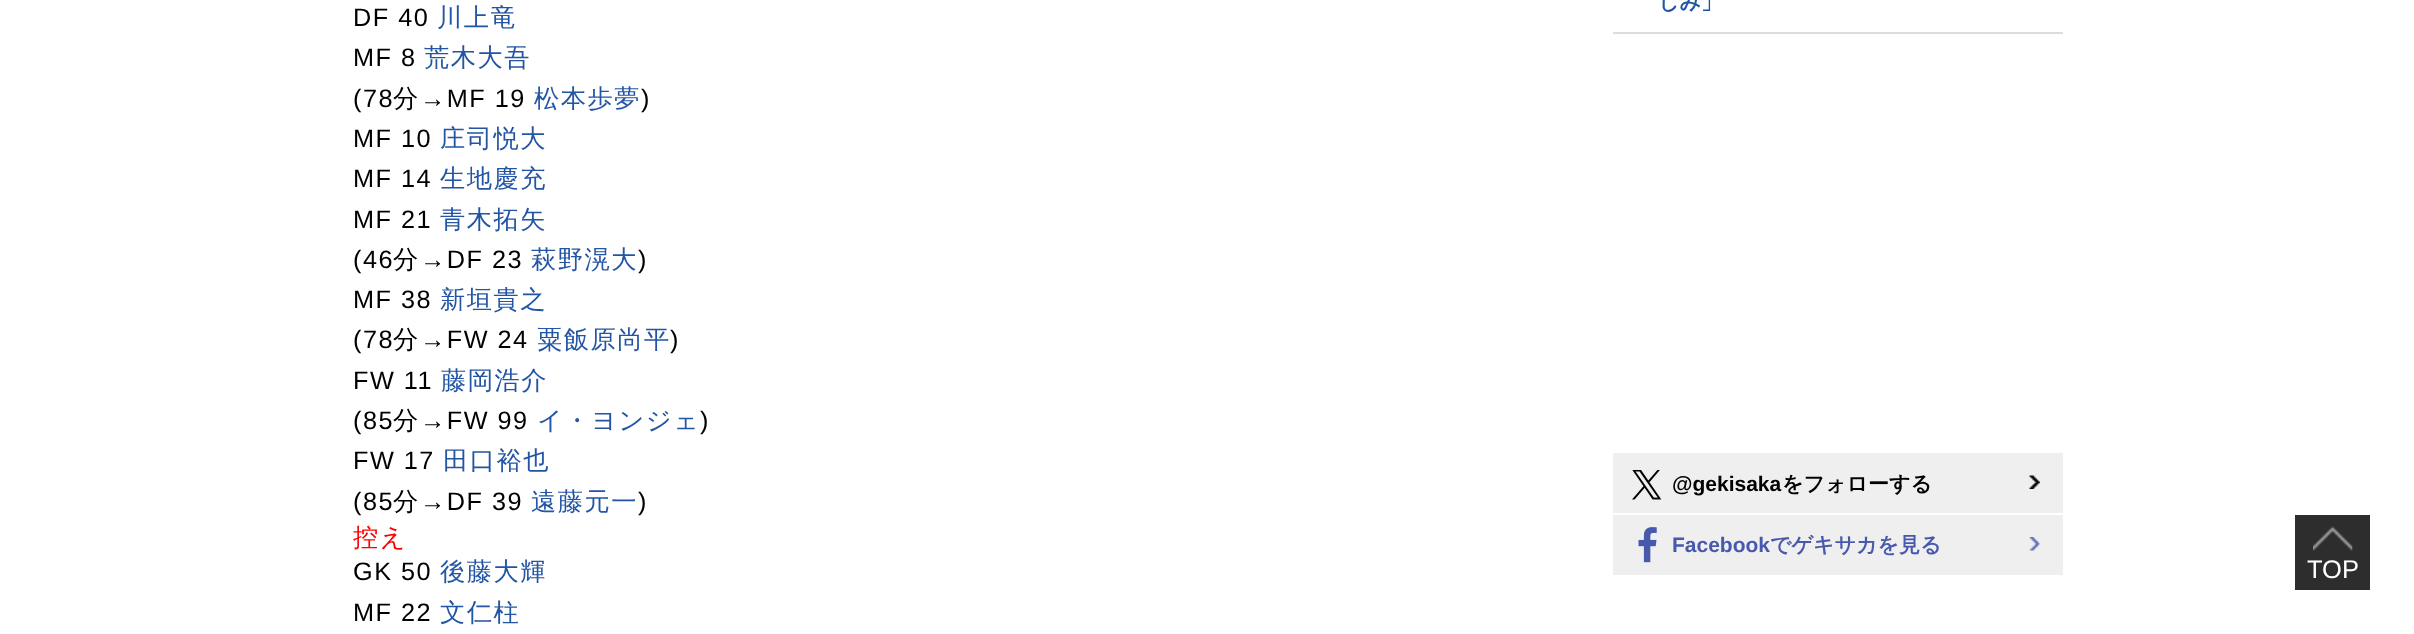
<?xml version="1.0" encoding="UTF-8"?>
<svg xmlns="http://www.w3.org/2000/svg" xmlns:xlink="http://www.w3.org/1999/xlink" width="2414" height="634">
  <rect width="100%" height="100%" fill="#ffffff" />
  <rect x="1613" y="32" width="450" height="2" fill="#dddddd" />
  <rect x="1613" y="453" width="450" height="60" fill="#efefef" />
  <image x="2029" y="475" width="11" height="14" xlink:href="image1.png" />
  <image x="1632" y="470" width="30" height="30" xlink:href="image2.png" />
  <rect x="1613" y="515" width="450" height="60" fill="#efefef" />
  <image x="2029" y="537" width="11" height="14" xlink:href="image3.png" />
  <image x="1638" y="527" width="19" height="36" xlink:href="image4.png" />
  <rect x="2295" y="515" width="75" height="75" fill="#2d2d2d" />
  <image x="2313" y="526" width="40" height="25" xlink:href="image5.png" />
  <text x="353" y="26" style="font-family: Liberation Sans; font-size: 25.25px; letter-spacing: 1.5px; fill: #000000">DF 40</text>
  <text x="437" y="26" style="font-family: WenQuanYi Zen Hei; font-size: 25.25px; font-weight: 500; letter-spacing: 1.5px; fill: #2355a5">川上竜</text>
  <text x="353" y="66" style="font-family: Liberation Sans; font-size: 25.25px; letter-spacing: 1.5px; fill: #000000">MF 8</text>
  <text x="424" y="66" style="font-family: WenQuanYi Zen Hei; font-size: 25.25px; font-weight: 500; letter-spacing: 1.5px; fill: #2355a5">荒木大吾</text>
  <text x="353" y="107" style="font-family: Liberation Sans; font-size: 25.25px; letter-spacing: 1.5px; fill: #000000">(78</text>
  <text x="393" y="107" style="font-family: WenQuanYi Zen Hei; font-size: 25.25px; font-weight: 500; letter-spacing: 1.5px; fill: #000000">分</text>
  <text x="420" y="107" style="font-family: Liberation Sans; font-size: 25.25px; letter-spacing: 1.5px; fill: #000000">→MF 19</text>
  <text x="534" y="107" style="font-family: WenQuanYi Zen Hei; font-size: 25.25px; font-weight: 500; letter-spacing: 1.5px; fill: #2355a5">松本歩夢</text>
  <text x="641" y="107" style="font-family: Liberation Sans; font-size: 25.25px; letter-spacing: 1.5px; fill: #000000">)</text>
  <text x="353" y="147" style="font-family: Liberation Sans; font-size: 25.25px; letter-spacing: 1.5px; fill: #000000">MF 10</text>
  <text x="440" y="147" style="font-family: WenQuanYi Zen Hei; font-size: 25.25px; font-weight: 500; letter-spacing: 1.5px; fill: #2355a5">庄司悦大</text>
  <text x="353" y="187" style="font-family: Liberation Sans; font-size: 25.25px; letter-spacing: 1.5px; fill: #000000">MF 14</text>
  <text x="440" y="187" style="font-family: WenQuanYi Zen Hei; font-size: 25.25px; font-weight: 500; letter-spacing: 1.5px; fill: #2355a5">生地慶充</text>
  <text x="353" y="228" style="font-family: Liberation Sans; font-size: 25.25px; letter-spacing: 1.5px; fill: #000000">MF 21</text>
  <text x="440" y="228" style="font-family: WenQuanYi Zen Hei; font-size: 25.25px; font-weight: 500; letter-spacing: 1.5px; fill: #2355a5">青木拓矢</text>
  <text x="353" y="268" style="font-family: Liberation Sans; font-size: 25.25px; letter-spacing: 1.5px; fill: #000000">(46</text>
  <text x="393" y="268" style="font-family: WenQuanYi Zen Hei; font-size: 25.25px; font-weight: 500; letter-spacing: 1.5px; fill: #000000">分</text>
  <text x="420" y="268" style="font-family: Liberation Sans; font-size: 25.25px; letter-spacing: 1.5px; fill: #000000">→DF 23</text>
  <text x="531" y="268" style="font-family: WenQuanYi Zen Hei; font-size: 25.25px; font-weight: 500; letter-spacing: 1.5px; fill: #2355a5">萩野滉大</text>
  <text x="638" y="268" style="font-family: Liberation Sans; font-size: 25.25px; letter-spacing: 1.5px; fill: #000000">)</text>
  <text x="353" y="308" style="font-family: Liberation Sans; font-size: 25.25px; letter-spacing: 1.5px; fill: #000000">MF 38</text>
  <text x="440" y="308" style="font-family: WenQuanYi Zen Hei; font-size: 25.25px; font-weight: 500; letter-spacing: 1.5px; fill: #2355a5">新垣貴之</text>
  <text x="353" y="348" style="font-family: Liberation Sans; font-size: 25.25px; letter-spacing: 1.5px; fill: #000000">(78</text>
  <text x="393" y="348" style="font-family: WenQuanYi Zen Hei; font-size: 25.25px; font-weight: 500; letter-spacing: 1.5px; fill: #000000">分</text>
  <text x="420" y="348" style="font-family: Liberation Sans; font-size: 25.25px; letter-spacing: 1.5px; fill: #000000">→FW 24</text>
  <text x="537" y="348" style="font-family: WenQuanYi Zen Hei; font-size: 25.25px; font-weight: 500; letter-spacing: 1.5px; fill: #2355a5">粟飯原尚平</text>
  <text x="670" y="348" style="font-family: Liberation Sans; font-size: 25.25px; letter-spacing: 1.5px; fill: #000000">)</text>
  <text x="353" y="389" style="font-family: Liberation Sans; font-size: 25.25px; letter-spacing: 1.5px; fill: #000000">FW 11</text>
  <text x="441" y="389" style="font-family: WenQuanYi Zen Hei; font-size: 25.25px; font-weight: 500; letter-spacing: 1.5px; fill: #2355a5">藤岡浩介</text>
  <text x="353" y="429" style="font-family: Liberation Sans; font-size: 25.25px; letter-spacing: 1.5px; fill: #000000">(85</text>
  <text x="393" y="429" style="font-family: WenQuanYi Zen Hei; font-size: 25.25px; font-weight: 500; letter-spacing: 1.5px; fill: #000000">分</text>
  <text x="420" y="429" style="font-family: Liberation Sans; font-size: 25.25px; letter-spacing: 1.5px; fill: #000000">→FW 99</text>
  <text x="537" y="429" style="font-family: WenQuanYi Zen Hei; font-size: 25.25px; font-weight: 500; letter-spacing: 1.5px; fill: #2355a5">イ・ヨンジェ</text>
  <text x="700" y="429" style="font-family: Liberation Sans; font-size: 25.25px; letter-spacing: 1.5px; fill: #000000">)</text>
  <text x="353" y="469" style="font-family: Liberation Sans; font-size: 25.25px; letter-spacing: 1.5px; fill: #000000">FW 17</text>
  <text x="443" y="469" style="font-family: WenQuanYi Zen Hei; font-size: 25.25px; font-weight: 500; letter-spacing: 1.5px; fill: #2355a5">田口裕也</text>
  <text x="353" y="510" style="font-family: Liberation Sans; font-size: 25.25px; letter-spacing: 1.5px; fill: #000000">(85</text>
  <text x="393" y="510" style="font-family: WenQuanYi Zen Hei; font-size: 25.25px; font-weight: 500; letter-spacing: 1.5px; fill: #000000">分</text>
  <text x="420" y="510" style="font-family: Liberation Sans; font-size: 25.25px; letter-spacing: 1.5px; fill: #000000">→DF 39</text>
  <text x="531" y="510" style="font-family: WenQuanYi Zen Hei; font-size: 25.25px; font-weight: 500; letter-spacing: 1.5px; fill: #2355a5">遠藤元一</text>
  <text x="638" y="510" style="font-family: Liberation Sans; font-size: 25.25px; letter-spacing: 1.5px; fill: #000000">)</text>
  <text x="353" y="546" style="font-family: WenQuanYi Zen Hei; font-size: 25.25px; font-weight: 500; letter-spacing: 1.5px; fill: #ff0000">控え</text>
  <text x="353" y="580" style="font-family: Liberation Sans; font-size: 25.25px; letter-spacing: 1.5px; fill: #000000">GK 50</text>
  <text x="440" y="580" style="font-family: WenQuanYi Zen Hei; font-size: 25.25px; font-weight: 500; letter-spacing: 1.5px; fill: #2355a5">後藤大輝</text>
  <text x="353" y="621" style="font-family: Liberation Sans; font-size: 25.25px; letter-spacing: 1.5px; fill: #000000">MF 22</text>
  <text x="440" y="621" style="font-family: WenQuanYi Zen Hei; font-size: 25.25px; font-weight: 500; letter-spacing: 1.5px; fill: #2355a5">文仁柱</text>
  <text x="1658" y="9" style="font-family: WenQuanYi Zen Hei; font-size: 21px; font-weight: bold; fill: #2355a5">しみ」</text>
  <text x="1672" y="491" style="font-family: Liberation Sans; font-size: 21px; font-weight: bold; fill: #000000">@gekisaka</text>
  <text x="1782" y="491" style="font-family: WenQuanYi Zen Hei; font-size: 21px; font-weight: bold; fill: #000000">をフォローする</text>
  <text x="1672" y="552" style="font-family: Liberation Sans; font-size: 21px; font-weight: bold; fill: #4759ac">Facebook</text>
  <text x="1770" y="552" style="font-family: WenQuanYi Zen Hei; font-size: 21px; font-weight: bold; fill: #4759ac">でゲキサカを見る</text>
  <text x="2307" y="578" style="font-family: Liberation Sans; font-size: 25.5px; fill: #ffffff">TOP</text>
</svg>
